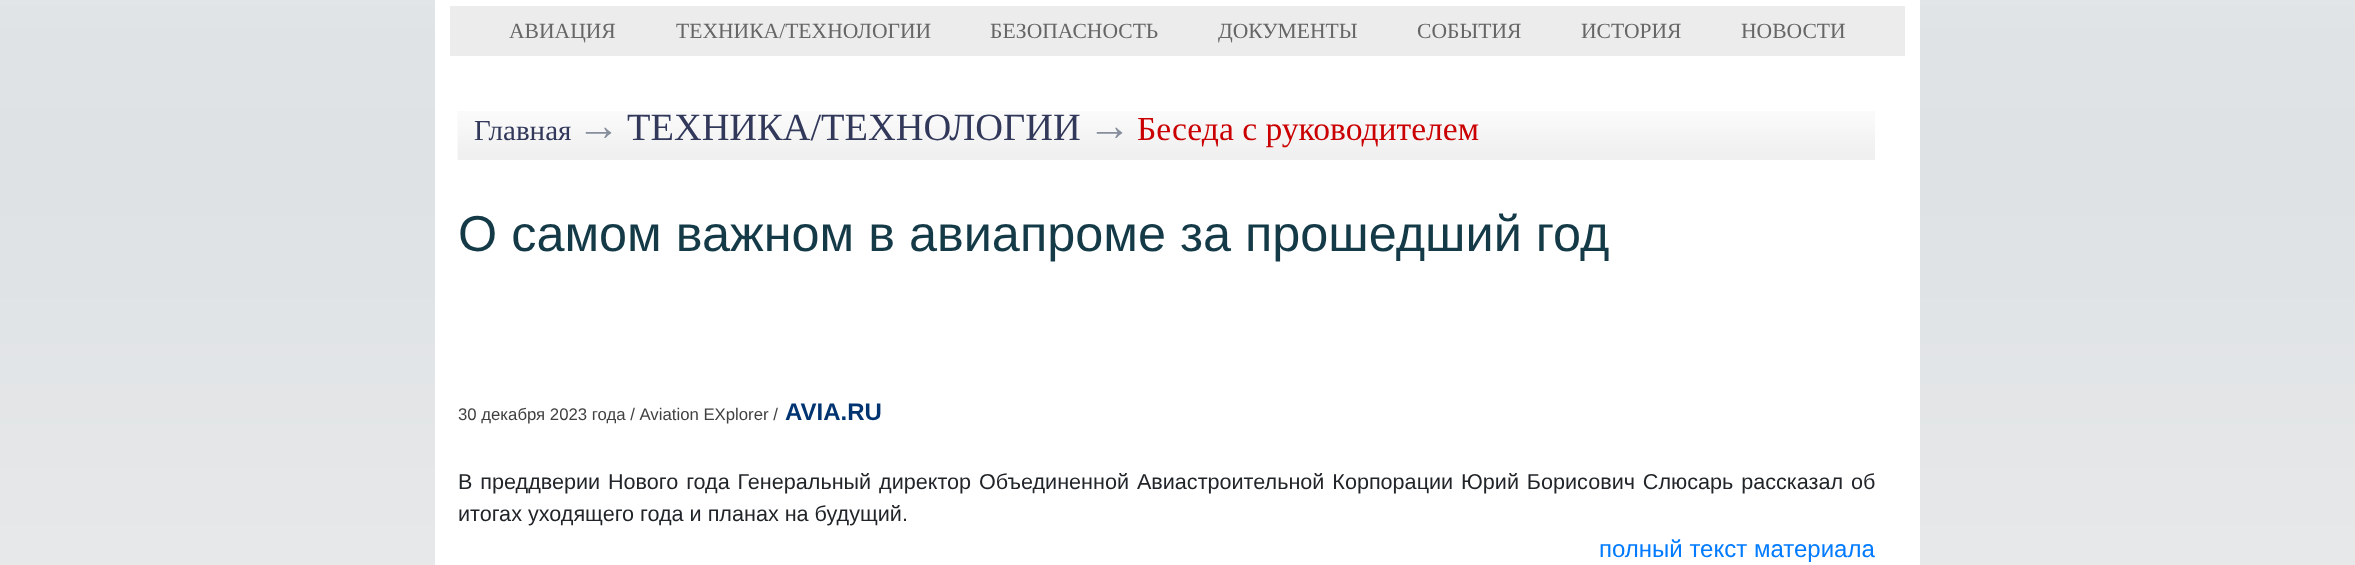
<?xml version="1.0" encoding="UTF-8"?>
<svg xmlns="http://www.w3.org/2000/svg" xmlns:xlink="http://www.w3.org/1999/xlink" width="2355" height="565">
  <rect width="100%" height="100%" fill="#ffffff" />
  <image x="0" y="0" width="2355" height="565" xlink:href="image1.png" />
  <rect x="435" width="1485" height="565" fill="#ffffff" />
  <rect x="450" y="6" width="1455" height="50" fill="#ececec" />
  <image x="457" y="111" width="1418" height="49" xlink:href="image2.png" />
  <text x="509" y="38" style="font-family: Liberation Serif; font-size: 21.6px; fill: #666666">АВИАЦИЯ</text>
  <text x="676" y="38" style="font-family: Liberation Serif; font-size: 21.6px; fill: #666666">ТЕХНИКА/ТЕХНОЛОГИИ</text>
  <text x="990" y="38" style="font-family: Liberation Serif; font-size: 21.6px; fill: #666666">БЕЗОПАСНОСТЬ</text>
  <text x="1218" y="38" style="font-family: Liberation Serif; font-size: 21.6px; fill: #666666">ДОКУМЕНТЫ</text>
  <text x="1417" y="38" style="font-family: Liberation Serif; font-size: 21.6px; fill: #666666">СОБЫТИЯ</text>
  <text x="1581" y="38" style="font-family: Liberation Serif; font-size: 21.6px; fill: #666666">ИСТОРИЯ</text>
  <text x="1741" y="38" style="font-family: Liberation Serif; font-size: 21.6px; fill: #666666">НОВОСТИ</text>
  <text x="474" y="140" style="font-family: Liberation Serif; font-size: 29px; fill: #32385a">Главная</text>
  <text x="577" y="140" style="font-family: Liberation Sans; font-size: 43px; fill: #878f9c">→</text>
  <text x="627" y="140" style="font-family: Liberation Serif; font-size: 38.4px; fill: #32385a">ТЕХНИКА/ТЕХНОЛОГИИ</text>
  <text x="1088" y="140" style="font-family: Liberation Sans; font-size: 43px; fill: #878f9c">→</text>
  <text x="1137" y="140" style="font-family: Liberation Serif; font-size: 33.6px; fill: #ca0002">Беседа с руководителем</text>
  <text x="458" y="251" style="font-family: Liberation Sans; font-size: 50.4px; fill: #143a47">О самом важном в авиапроме за прошедший год</text>
  <text x="458" y="420" style="font-family: Liberation Sans; font-size: 16.75px; fill: #414141">30 декабря 2023 года / Aviation EXplorer /</text>
  <text x="785" y="420" style="font-family: Liberation Sans; font-size: 24px; font-weight: bold; fill: #003471">AVIA.RU</text>
  <text x="458" y="489" word-spacing="1.9" style="font-family: Liberation Sans; font-size: 21.6px; fill: #212529">В преддверии Нового года Генеральный директор Объединенной Авиастроительной Корпорации Юрий Борисович Слюсарь рассказал об</text>
  <text x="458" y="521" style="font-family: Liberation Sans; font-size: 21.6px; fill: #212529">итогах уходящего года и планах на будущий.</text>
  <text x="1599" y="557" style="font-family: Liberation Sans; font-size: 24px; fill: #007bff">полный текст материала</text>
</svg>
